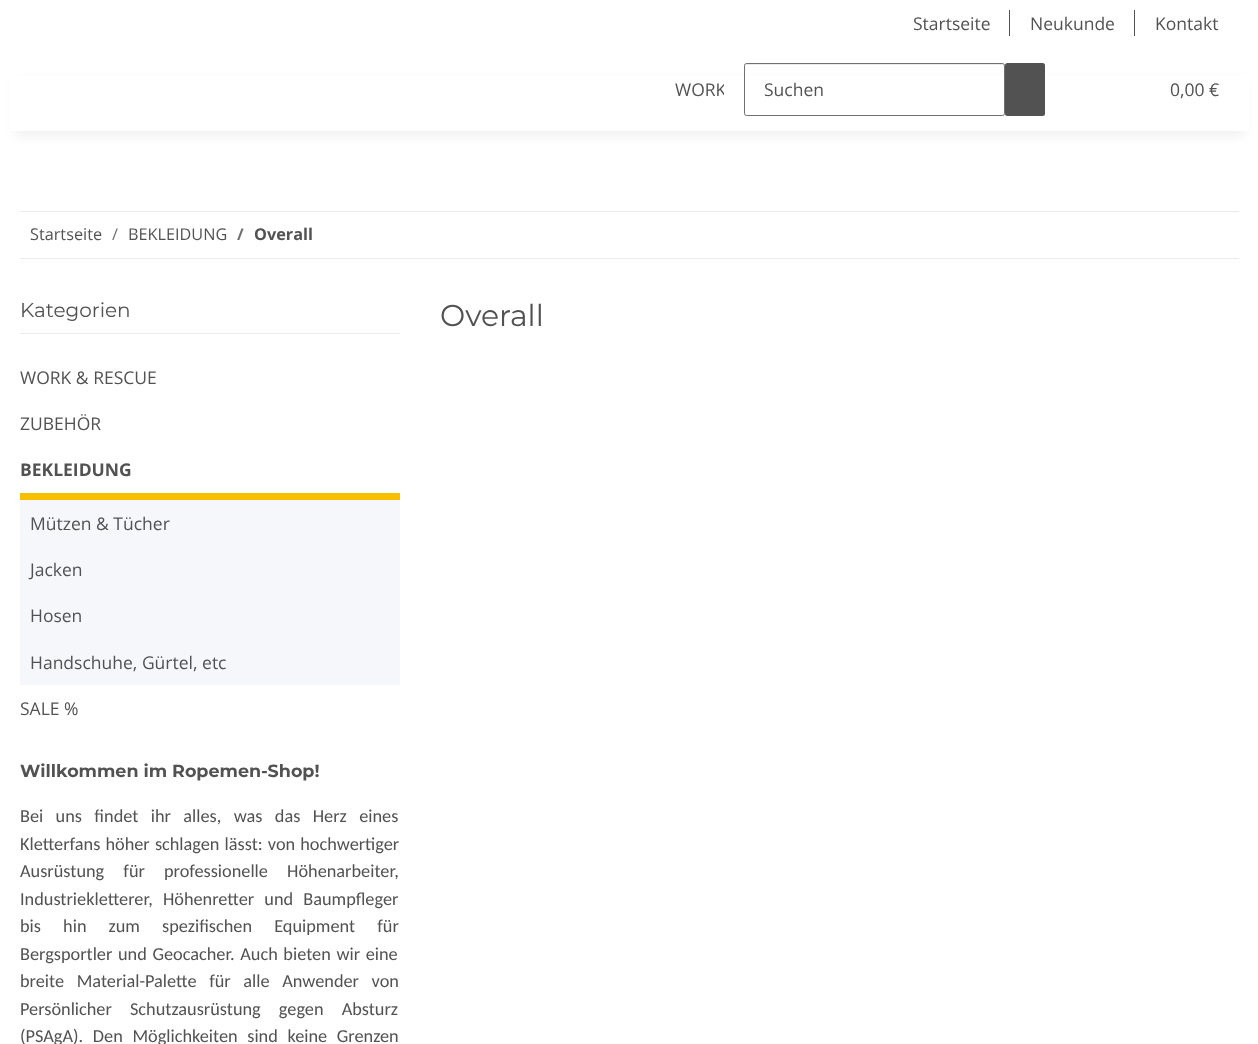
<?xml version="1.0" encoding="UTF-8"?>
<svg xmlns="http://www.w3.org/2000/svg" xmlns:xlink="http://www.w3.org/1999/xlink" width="1258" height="1044">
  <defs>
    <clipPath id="clip1"><rect x="645" y="46" width="79" height="87" /></clipPath>
  </defs>
  <rect width="100%" height="100%" fill="#ffffff" />
  <rect x="1009" y="10" width="1" height="26" fill="#525252" />
  <rect x="1134" y="10" width="1" height="26" fill="#525252" />
  <rect x="15" y="81" width="1229" height="55" fill="#000000" fill-opacity="0.06" filter="blur(5.5px)" />
  <rect x="10" y="76" width="1239" height="55" fill="#ffffff" />
  <path d="M 746 65 h 256 l 2 1 v -2 h -258 c -1 0 -1 1 -1 2 z" fill="#ececec" />
  <rect x="744.5" y="63.5" width="260" height="52" rx="2" fill="none" stroke="#707070" />
  <rect x="1005" y="63" width="40" height="53" rx="2.5" fill="#525252" />
  <rect x="20" y="211" width="1219" height="1" fill="#ebebeb" />
  <rect x="20" y="258" width="1219" height="1" fill="#ebebeb" />
  <rect x="20" y="333" width="380" height="1" fill="#ebebeb" />
  <rect x="20" y="493" width="380" height="7" fill="#f8bf00" />
  <rect x="20" y="500" width="380" height="185" fill="#f5f7fa" />
  <text x="913" y="30" style="font-family: Open Sans; font-size: 17.5px; fill: #525252">Startseite</text>
  <text x="1030" y="30" style="font-family: Open Sans; font-size: 17.5px; fill: #525252">Neukunde</text>
  <text x="1155" y="30" style="font-family: Open Sans; font-size: 17.5px; fill: #525252">Kontakt</text>
  <g clip-path="url(#clip1)">
    <text x="675" y="96" style="font-family: Open Sans; font-size: 17.5px; fill: #525252">WORK</text>
  </g>
  <text x="764" y="96" style="font-family: Open Sans; font-size: 17.5px; fill: #525252">Suchen</text>
  <text x="1170" y="96" style="font-family: Open Sans; font-size: 17.5px; fill: #525252">0,00 €</text>
  <text x="30" y="240" style="font-family: Open Sans; font-size: 16.25px; fill: #525252">Startseite</text>
  <text x="112" y="240" style="font-family: Open Sans; font-size: 16.25px; fill: #707070">/</text>
  <text x="128" y="240" style="font-family: Open Sans; font-size: 16.25px; fill: #525252">BEKLEIDUNG</text>
  <text x="237" y="240" style="font-family: Open Sans; font-size: 16.25px; font-weight: bold; fill: #707070">/</text>
  <text x="254" y="240" style="font-family: Open Sans; font-size: 16.25px; font-weight: bold; fill: #525252">Overall</text>
  <text x="20" y="317" style="font-family: Montserrat; font-size: 20px; fill: #525252">Kategorien</text>
  <text x="20" y="384" style="font-family: Open Sans; font-size: 17.5px; fill: #525252">WORK &amp; RESCUE</text>
  <text x="20" y="430" style="font-family: Open Sans; font-size: 17.5px; fill: #525252">ZUBEHÖR</text>
  <text x="20" y="476" style="font-family: Open Sans; font-size: 17.5px; font-weight: bold; fill: #525252">BEKLEIDUNG</text>
  <text x="30" y="530" style="font-family: Open Sans; font-size: 17.5px; fill: #525252">Mützen &amp; Tücher</text>
  <text x="30" y="576" style="font-family: Open Sans; font-size: 17.5px; fill: #525252">Jacken</text>
  <text x="30" y="622" style="font-family: Open Sans; font-size: 17.5px; fill: #525252">Hosen</text>
  <text x="30" y="669" style="font-family: Open Sans; font-size: 17.5px; fill: #525252">Handschuhe, Gürtel, etc</text>
  <text x="20" y="715" style="font-family: Open Sans; font-size: 17.5px; fill: #525252">SALE %</text>
  <text x="20" y="777" style="font-family: Montserrat; font-size: 17.5px; font-weight: bold; fill: #525252">Willkommen im Ropemen-Shop!</text>
  <text x="20" y="822" word-spacing="8.25" style="font-family: Carlito; font-size: 18.3px; fill: #525252">Bei uns findet ihr alles, was das Herz eines</text>
  <text x="20" y="850" word-spacing="1" style="font-family: Carlito; font-size: 18.3px; fill: #525252">Kletterfans höher schlagen lässt: von hochwertiger</text>
  <text x="20" y="877" word-spacing="15" style="font-family: Carlito; font-size: 18.3px; fill: #525252">Ausrüstung für professionelle Höhenarbeiter,</text>
  <text x="20" y="905" word-spacing="6" style="font-family: Carlito; font-size: 18.3px; fill: #525252">Industriekletterer, Höhenretter und Baumpfleger</text>
  <text x="20" y="932" word-spacing="18" style="font-family: Carlito; font-size: 18.3px; fill: #525252">bis hin zum spezifischen Equipment für</text>
  <text x="20" y="960" word-spacing="1.5" style="font-family: Carlito; font-size: 18.3px; fill: #525252">Bergsportler und Geocacher. Auch bieten wir eine</text>
  <text x="20" y="987" word-spacing="8.5" style="font-family: Carlito; font-size: 18.3px; fill: #525252">breite Material-Palette für alle Anwender von</text>
  <text x="20" y="1015" word-spacing="14" style="font-family: Carlito; font-size: 18.3px; fill: #525252">Persönlicher Schutzausrüstung gegen Absturz</text>
  <text x="20" y="1042" word-spacing="5.5" style="font-family: Carlito; font-size: 18.3px; fill: #525252">(PSAgA). Den Möglichkeiten sind keine Grenzen</text>
  <text x="440" y="326" style="font-family: Montserrat; font-size: 30px; fill: #525252">Overall</text>
</svg>
